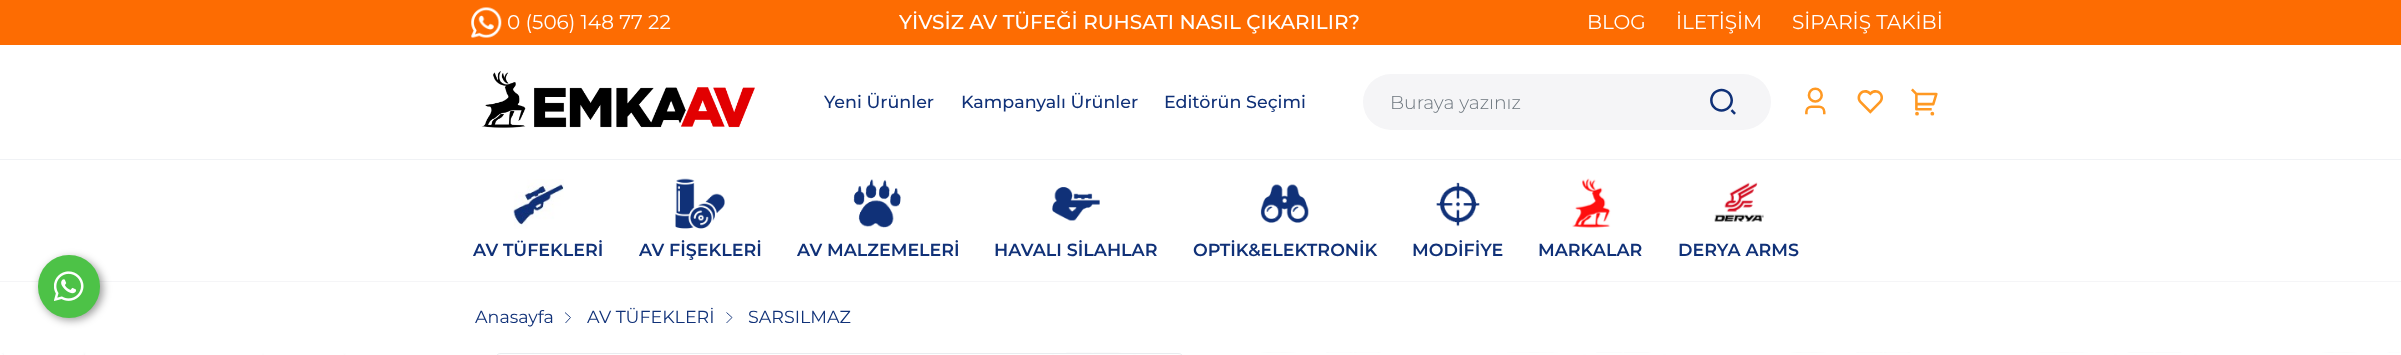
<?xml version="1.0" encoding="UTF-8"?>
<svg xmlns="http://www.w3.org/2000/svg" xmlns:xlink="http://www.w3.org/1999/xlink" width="2401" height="355">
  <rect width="100%" height="100%" fill="#ffffff" />
  <image x="1" y="353" width="2" height="2" xlink:href="image1.png" />
  <rect y="281" width="2401" height="1" fill="#f5f5f7" />
  <rect x="40" y="258" width="63" height="62" rx="31" fill="#000000" fill-opacity="0.4" filter="blur(4px)" />
  <rect x="38" y="255" width="62" height="63" rx="31" fill="#4dc247" />
  <image x="54" y="271" width="30" height="30" xlink:href="image2.png" />
  <rect width="2401" height="45" fill="#fd6c02" />
  <image x="471" y="7" width="31" height="31" xlink:href="image3.png" />
  <image x="481" y="71" width="274" height="57" xlink:href="image4.png" />
  <rect x="1363" y="74" width="408" height="56" rx="28" fill="#f5f5f7" />
  <image x="1710" y="88" width="26" height="27" xlink:href="image5.png" />
  <image x="1805" y="87" width="21" height="28" xlink:href="image6.png" />
  <image x="1857" y="90" width="26" height="24" xlink:href="image7.png" />
  <image x="1911" y="88" width="27" height="28" xlink:href="image8.png" />
  <rect y="159" width="2401" height="1" fill="#f0f2f5" />
  <image x="513" y="179" width="51" height="50" xlink:href="image9.png" />
  <image x="675" y="178" width="50" height="51" xlink:href="image10.png" />
  <image x="853" y="179" width="48" height="49" xlink:href="image11.png" />
  <image x="1052" y="187" width="48" height="34" xlink:href="image12.png" />
  <image x="1260" y="184" width="49" height="39" xlink:href="image13.png" />
  <image x="1436" y="182" width="44" height="45" xlink:href="image14.png" />
  <image x="1572" y="178" width="39" height="50" xlink:href="image15.png" />
  <image x="1714" y="182" width="50" height="40" xlink:href="image16.png" />
  <path d="M 565 312.5 l 5.5 5 l -5 5.5" fill="none" stroke="#103178" stroke-width="0.9" />
  <path d="M 726.5 312.5 l 5.5 5 l -5.5 5.5" fill="none" stroke="#103178" stroke-width="0.9" />
  <image x="3" y="352" width="2397" height="3" xlink:href="image17.png" />
  <rect x="532" y="353" width="343" height="2" fill="#ffffff" />
  <rect x="496.5" y="353.5" width="686" height="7" rx="4.5" fill="none" stroke="#e9ecef" />
  <text x="507" y="29" style="font-family: Montserrat; font-size: 20px; fill: #ffffff">0 (506) 148 77 22</text>
  <text x="899" y="29" style="font-family: Montserrat; font-size: 20px; font-weight: 500; fill: #ffffff">YİVSİZ AV TÜFEĞİ RUHSATI NASIL ÇIKARILIR?</text>
  <text x="1587" y="29" style="font-family: Montserrat; font-size: 20px; fill: #ffffff">BLOG</text>
  <text x="1676" y="29" style="font-family: Montserrat; font-size: 20px; fill: #ffffff">İLETİŞİM</text>
  <text x="1792" y="29" style="font-family: Montserrat; font-size: 20px; fill: #ffffff">SİPARİŞ TAKİBİ</text>
  <text x="824" y="108" style="font-family: Montserrat; font-size: 17.5px; font-weight: 500; fill: #103178">Yeni Ürünler</text>
  <text x="961" y="108" style="font-family: Montserrat; font-size: 17.5px; font-weight: 500; fill: #103178">Kampanyalı Ürünler</text>
  <text x="1164" y="108" style="font-family: Montserrat; font-size: 17.5px; font-weight: 500; fill: #103178">Editörün Seçimi</text>
  <text x="1390" y="109" style="font-family: Montserrat; font-size: 18.75px; font-weight: 300; fill: #6c757d">Buraya yazınız</text>
  <text x="473" y="256" style="font-family: Montserrat; font-size: 17.5px; font-weight: 600; fill: #103178">AV TÜFEKLERİ</text>
  <text x="639" y="256" style="font-family: Montserrat; font-size: 17.5px; font-weight: 600; fill: #103178">AV FİŞEKLERİ</text>
  <text x="797" y="256" style="font-family: Montserrat; font-size: 17.5px; font-weight: 600; fill: #103178">AV MALZEMELERİ</text>
  <text x="994" y="256" style="font-family: Montserrat; font-size: 17.5px; font-weight: 600; fill: #103178">HAVALI SİLAHLAR</text>
  <text x="1193" y="256" style="font-family: Montserrat; font-size: 17.5px; font-weight: 600; fill: #103178">OPTİK&amp;ELEKTRONİK</text>
  <text x="1412" y="256" style="font-family: Montserrat; font-size: 17.5px; font-weight: 600; fill: #103178">MODİFİYE</text>
  <text x="1538" y="256" style="font-family: Montserrat; font-size: 17.5px; font-weight: 600; fill: #103178">MARKALAR</text>
  <text x="1678" y="256" style="font-family: Montserrat; font-size: 17.5px; font-weight: 600; fill: #103178">DERYA ARMS</text>
  <text x="475" y="323" style="font-family: Montserrat; font-size: 17.5px; fill: #103178">Anasayfa</text>
  <text x="587" y="323" style="font-family: Montserrat; font-size: 17.5px; fill: #103178">AV TÜFEKLERİ</text>
  <text x="748" y="323" style="font-family: Montserrat; font-size: 17.5px; fill: #103178">SARSILMAZ</text>
</svg>
